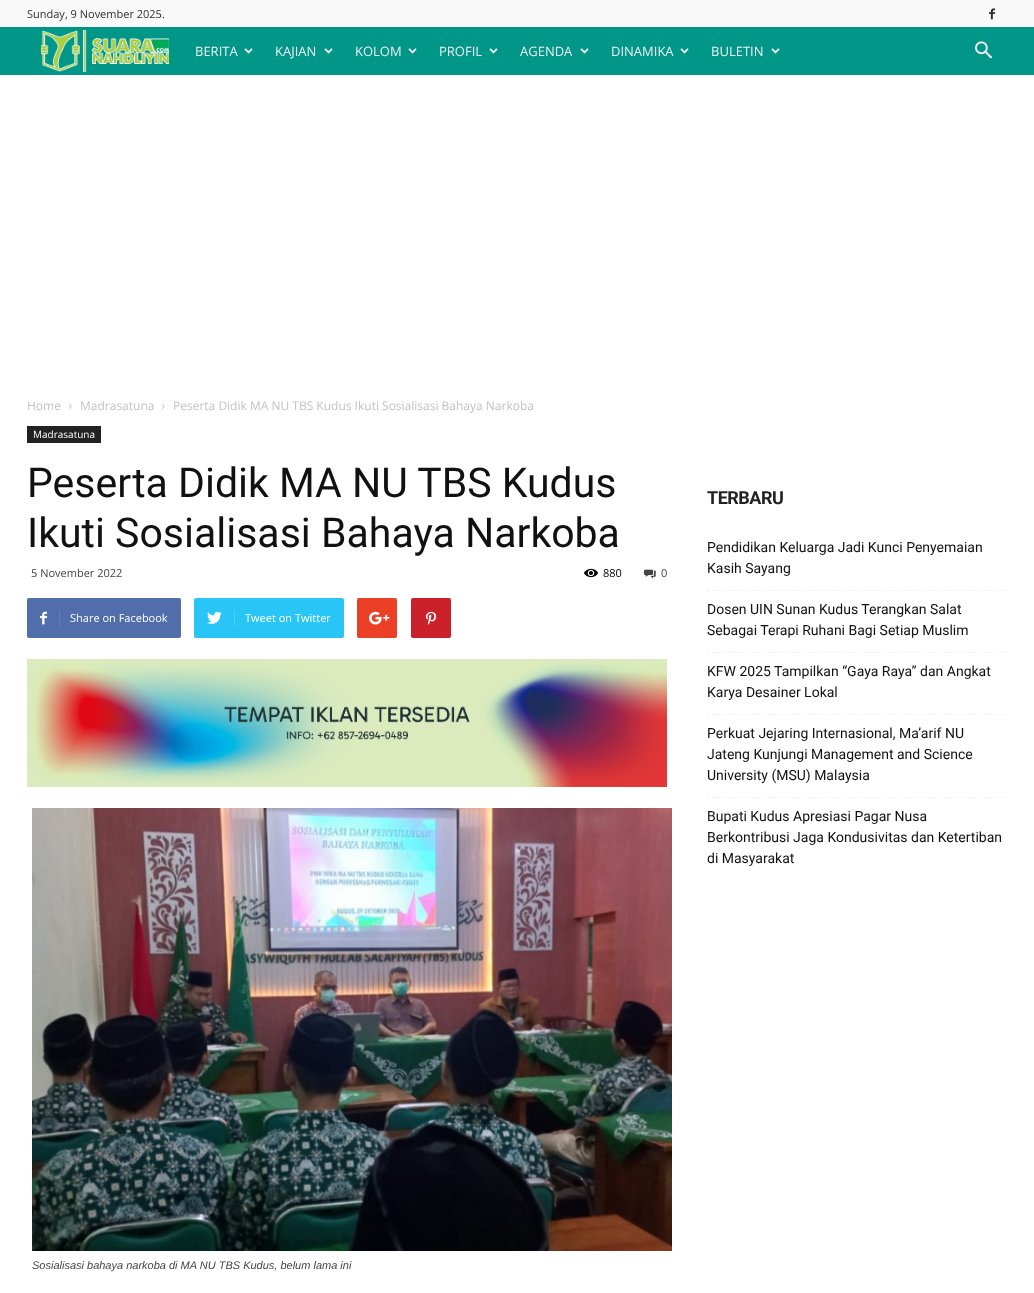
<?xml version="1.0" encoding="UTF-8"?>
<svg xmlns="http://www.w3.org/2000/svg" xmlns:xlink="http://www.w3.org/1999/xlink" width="1034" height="1293">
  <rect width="100%" height="100%" fill="#ffffff" />
  <rect width="1034" height="27" fill="#f9f9f9" />
  <image x="989" y="8" width="6" height="12" xlink:href="image1.png" />
  <rect y="27" width="1034" height="48" fill="#009688" />
  <image x="41" y="30" width="128" height="42" xlink:href="image2.png" />
  <image x="244" y="48" width="9" height="6" xlink:href="image3.png" />
  <image x="324" y="48" width="9" height="6" xlink:href="image3.png" />
  <image x="408" y="48" width="9" height="6" xlink:href="image3.png" />
  <image x="489" y="48" width="9" height="6" xlink:href="image3.png" />
  <image x="580" y="48" width="9" height="6" xlink:href="image3.png" />
  <image x="680" y="48" width="9" height="6" xlink:href="image3.png" />
  <image x="771" y="48" width="9" height="6" xlink:href="image3.png" />
  <image x="975" y="41" width="17" height="18" xlink:href="image4.png" />
  <image x="69" y="404" width="3" height="5" xlink:href="image5.png" />
  <image x="162" y="404" width="3" height="5" xlink:href="image5.png" />
  <rect x="27" y="426" width="74" height="17" fill="#222222" />
  <image x="584" y="568" width="14" height="10" xlink:href="image6.png" />
  <image x="644" y="569" width="12" height="10" xlink:href="image7.png" />
  <rect x="27" y="598" width="154" height="40" rx="2" fill="#516eab" />
  <image x="40" y="611" width="7" height="14" xlink:href="image8.png" />
  <rect x="59" y="610" width="1" height="16" fill="#627db3" />
  <rect x="194" y="598" width="150" height="40" rx="2" fill="#29c5f6" />
  <image x="207" y="611" width="15" height="13" xlink:href="image9.png" />
  <rect x="234" y="610" width="1" height="16" fill="#54d1f8" />
  <rect x="357" y="598" width="40" height="40" rx="2" fill="#eb4026" />
  <image x="369" y="611" width="21" height="14" xlink:href="image10.png" />
  <rect x="411" y="598" width="40" height="40" rx="2" fill="#ca212a" />
  <image x="426" y="611" width="11" height="14" xlink:href="image11.png" />
  <image x="27" y="659" width="640" height="128" xlink:href="image12.png" />
  <image x="32" y="808" width="640" height="443" xlink:href="image13.png" />
  <path d="M 707 590.5 h 300" fill="none" stroke="#f1f1f1" stroke-dasharray="3 2.03" />
  <path d="M 707 652.5 h 300" fill="none" stroke="#f1f1f1" stroke-dasharray="3 2.03" />
  <path d="M 707 714.5 h 300" fill="none" stroke="#f1f1f1" stroke-dasharray="3 2.03" />
  <path d="M 707 797.5 h 300" fill="none" stroke="#f1f1f1" stroke-dasharray="3 2.03" />
  <text x="27" y="18" style="font-family: Open Sans; font-size: 11px; fill: #2f2f2f">Sunday, 9 November 2025.</text>
  <text x="195" y="56" style="font-family: Open Sans; font-size: 13px; fill: #efefef">BERITA</text>
  <text x="275" y="56" style="font-family: Open Sans; font-size: 13px; fill: #efefef">KAJIAN</text>
  <text x="355" y="56" style="font-family: Open Sans; font-size: 13px; fill: #efefef">KOLOM</text>
  <text x="439" y="56" style="font-family: Open Sans; font-size: 13px; fill: #efefef">PROFIL</text>
  <text x="520" y="56" style="font-family: Open Sans; font-size: 13px; fill: #efefef">AGENDA</text>
  <text x="611" y="56" style="font-family: Open Sans; font-size: 13px; fill: #efefef">DINAMIKA</text>
  <text x="711" y="56" style="font-family: Open Sans; font-size: 13px; fill: #efefef">BULETIN</text>
  <text x="27" y="410" style="font-family: Open Sans; font-size: 12px; fill: #c3c3c3">Home</text>
  <text x="80" y="410" style="font-family: Open Sans; font-size: 12px; fill: #c3c3c3">Madrasatuna</text>
  <text x="173" y="410" style="font-family: Open Sans; font-size: 12px; fill: #c3c3c3">Peserta Didik MA NU TBS Kudus Ikuti Sosialisasi Bahaya Narkoba</text>
  <text x="33" y="438" style="font-family: Open Sans; font-size: 10px; fill: #ffffff">Madrasatuna</text>
  <text x="27" y="497" style="font-family: Roboto; font-size: 41px; fill: #111111">Peserta Didik MA NU TBS Kudus</text>
  <text x="27" y="547" style="font-family: Roboto; font-size: 41px; fill: #111111">Ikuti Sosialisasi Bahaya Narkoba</text>
  <text x="31" y="577" style="font-family: Open Sans; font-size: 11px; fill: #444444">5 November 2022</text>
  <text x="603" y="577" style="font-family: Open Sans; font-size: 11px; fill: #000000">880</text>
  <text x="661" y="577" style="font-family: Open Sans; font-size: 11px; fill: #444444">0</text>
  <text x="70" y="622" style="font-family: Open Sans; font-size: 11px; fill: #ffffff">Share on Facebook</text>
  <text x="245" y="622" style="font-family: Open Sans; font-size: 11px; fill: #ffffff">Tweet on Twitter</text>
  <text x="32" y="1269" style="font-family: Liberation Sans; font-size: 11px; font-style: italic; fill: #444444">Sosialisasi bahaya narkoba di MA NU TBS Kudus, belum lama ini</text>
  <text x="707" y="504" style="font-family: Roboto; font-size: 18px; font-weight: bold; letter-spacing: -0.5px; fill: #222222">TERBARU</text>
  <text x="707" y="552" style="font-family: Roboto; font-size: 14px; fill: #111111">Pendidikan Keluarga Jadi Kunci Penyemaian</text>
  <text x="707" y="573" style="font-family: Roboto; font-size: 14px; fill: #111111">Kasih Sayang</text>
  <text x="707" y="614" style="font-family: Roboto; font-size: 14px; fill: #111111">Dosen UIN Sunan Kudus Terangkan Salat</text>
  <text x="707" y="635" style="font-family: Roboto; font-size: 14px; fill: #111111">Sebagai Terapi Ruhani Bagi Setiap Muslim</text>
  <text x="707" y="676" style="font-family: Roboto; font-size: 14px; fill: #111111">KFW 2025 Tampilkan “Gaya Raya” dan Angkat</text>
  <text x="707" y="697" style="font-family: Roboto; font-size: 14px; fill: #111111">Karya Desainer Lokal</text>
  <text x="707" y="738" style="font-family: Roboto; font-size: 14px; fill: #111111">Perkuat Jejaring Internasional, Ma’arif NU</text>
  <text x="707" y="759" style="font-family: Roboto; font-size: 14px; fill: #111111">Jateng Kunjungi Management and Science</text>
  <text x="707" y="780" style="font-family: Roboto; font-size: 14px; fill: #111111">University (MSU) Malaysia</text>
  <text x="707" y="821" style="font-family: Roboto; font-size: 14px; fill: #111111">Bupati Kudus Apresiasi Pagar Nusa</text>
  <text x="707" y="842" style="font-family: Roboto; font-size: 14px; fill: #111111">Berkontribusi Jaga Kondusivitas dan Ketertiban</text>
  <text x="707" y="863" style="font-family: Roboto; font-size: 14px; fill: #111111">di Masyarakat</text>
</svg>
